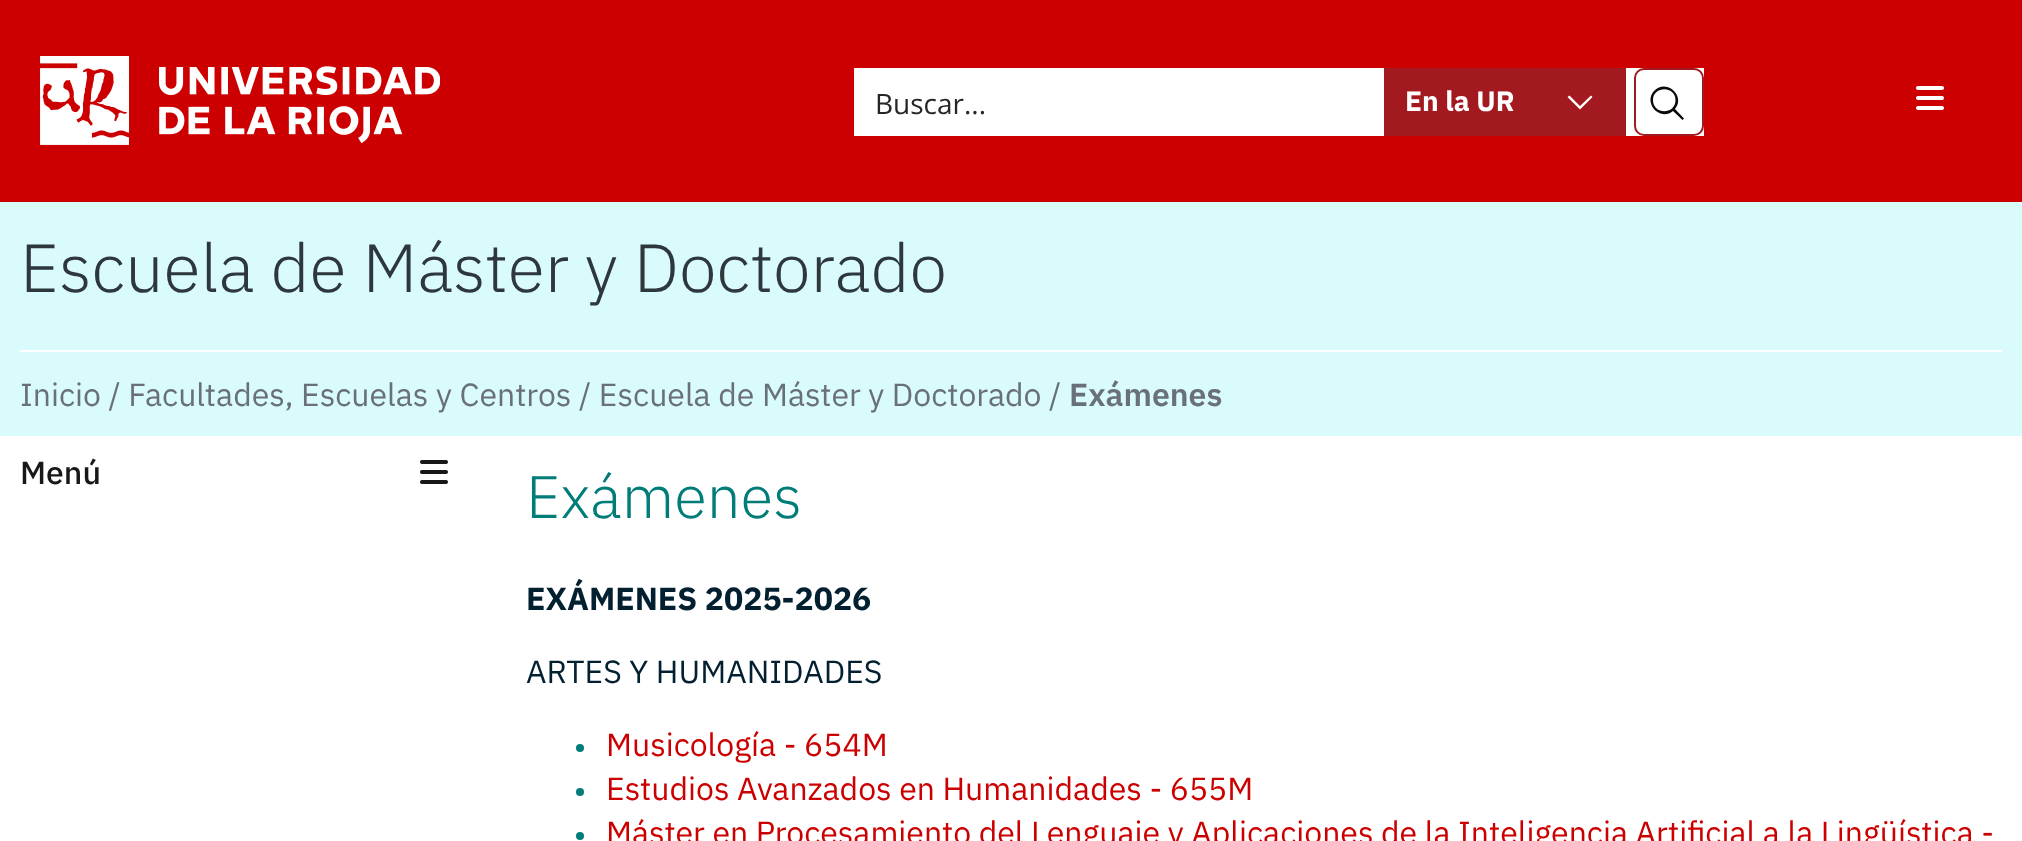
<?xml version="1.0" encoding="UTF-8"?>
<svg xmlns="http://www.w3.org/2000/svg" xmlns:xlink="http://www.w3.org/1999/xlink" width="2022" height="841">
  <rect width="100%" height="100%" fill="#ffffff" />
  <rect width="2022" height="202" fill="#cc0000" />
  <image x="40" y="56" width="400" height="89" xlink:href="image1.png" />
  <rect x="854" y="68" width="850" height="68" fill="#ffffff" />
  <rect x="1384" y="68" width="242" height="68" fill="#a2191f" />
  <path d="M 1580 109.5 l -12.5 -12.5 l 2 -1.5 l 10.5 10.5 l 11 -10.5 l 1.5 1.5 z" fill="#ffffff" />
  <rect x="1635" y="69" width="68" height="66" rx="9" fill="none" stroke="#a2191f" stroke-width="2" />
  <path d="M 1684 118.5 l -9 -9.5 c 11 -13 -8.5 -30.5 -20.5 -18.5 c -12 12 5.5 31.5 18.5 20.5 l 9.5 9 z m -31 -18.5 c 0 -14.5 22.5 -14.5 22.5 0 c 0 15 -22.5 15 -22.5 0 z" fill="#0a0a0a" />
  <image x="1916" y="86" width="28" height="24" xlink:href="image2.png" />
  <rect y="202" width="2022" height="234" fill="#d9fbfb" />
  <rect x="20" y="350" width="1982" height="2" fill="#ffffff" />
  <image x="420" y="460" width="28" height="24" xlink:href="image3.png" />
  <circle cx="580" cy="748" r="4" fill="#007d79" />
  <circle cx="580" cy="792" r="4" fill="#007d79" />
  <circle cx="580" cy="836" r="4" fill="#007d79" />
  <text x="875" y="114" style="font-family: Open Sans; font-size: 28px; fill: #262626">Buscar...</text>
  <text x="1405" y="111" style="font-family: IBM Plex Sans; font-size: 28px; font-weight: bold; fill: #ffffff">En la UR</text>
  <text x="20" y="292" style="font-family: IBM Plex Sans; font-size: 68px; font-weight: 300; fill: #2d373c">Escuela de Máster y Doctorado</text>
  <text x="20" y="406" style="font-family: IBM Plex Sans; font-size: 32px; fill: #697077">Inicio / Facultades, Escuelas y Centros / Escuela de Máster y Doctorado /</text>
  <text x="1069" y="406" style="font-family: IBM Plex Sans; font-size: 32px; font-weight: 600; fill: #697077">Exámenes</text>
  <text x="20" y="484" style="font-family: IBM Plex Sans; font-size: 32px; font-weight: 500; fill: #1a171b">Menú</text>
  <text x="526" y="518" style="font-family: IBM Plex Sans; font-size: 60px; font-weight: 300; fill: #007d79">Exámenes</text>
  <text x="526" y="610" style="font-family: IBM Plex Sans; font-size: 32px; font-weight: bold; fill: #022030">EXÁMENES 2025-2026</text>
  <text x="526" y="683" style="font-family: IBM Plex Sans; font-size: 32px; fill: #022030">ARTES Y HUMANIDADES</text>
  <text x="606" y="756" style="font-family: IBM Plex Sans; font-size: 32px; fill: #cc0000">Musicología - 654M</text>
  <text x="606" y="800" style="font-family: IBM Plex Sans; font-size: 32px; fill: #cc0000">Estudios Avanzados en Humanidades - 655M</text>
  <text x="606" y="844" style="font-family: IBM Plex Sans; font-size: 32px; fill: #cc0000">Máster en Procesamiento del Lenguaje y Aplicaciones de la Inteligencia Artificial a la Lingüística -</text>
</svg>
